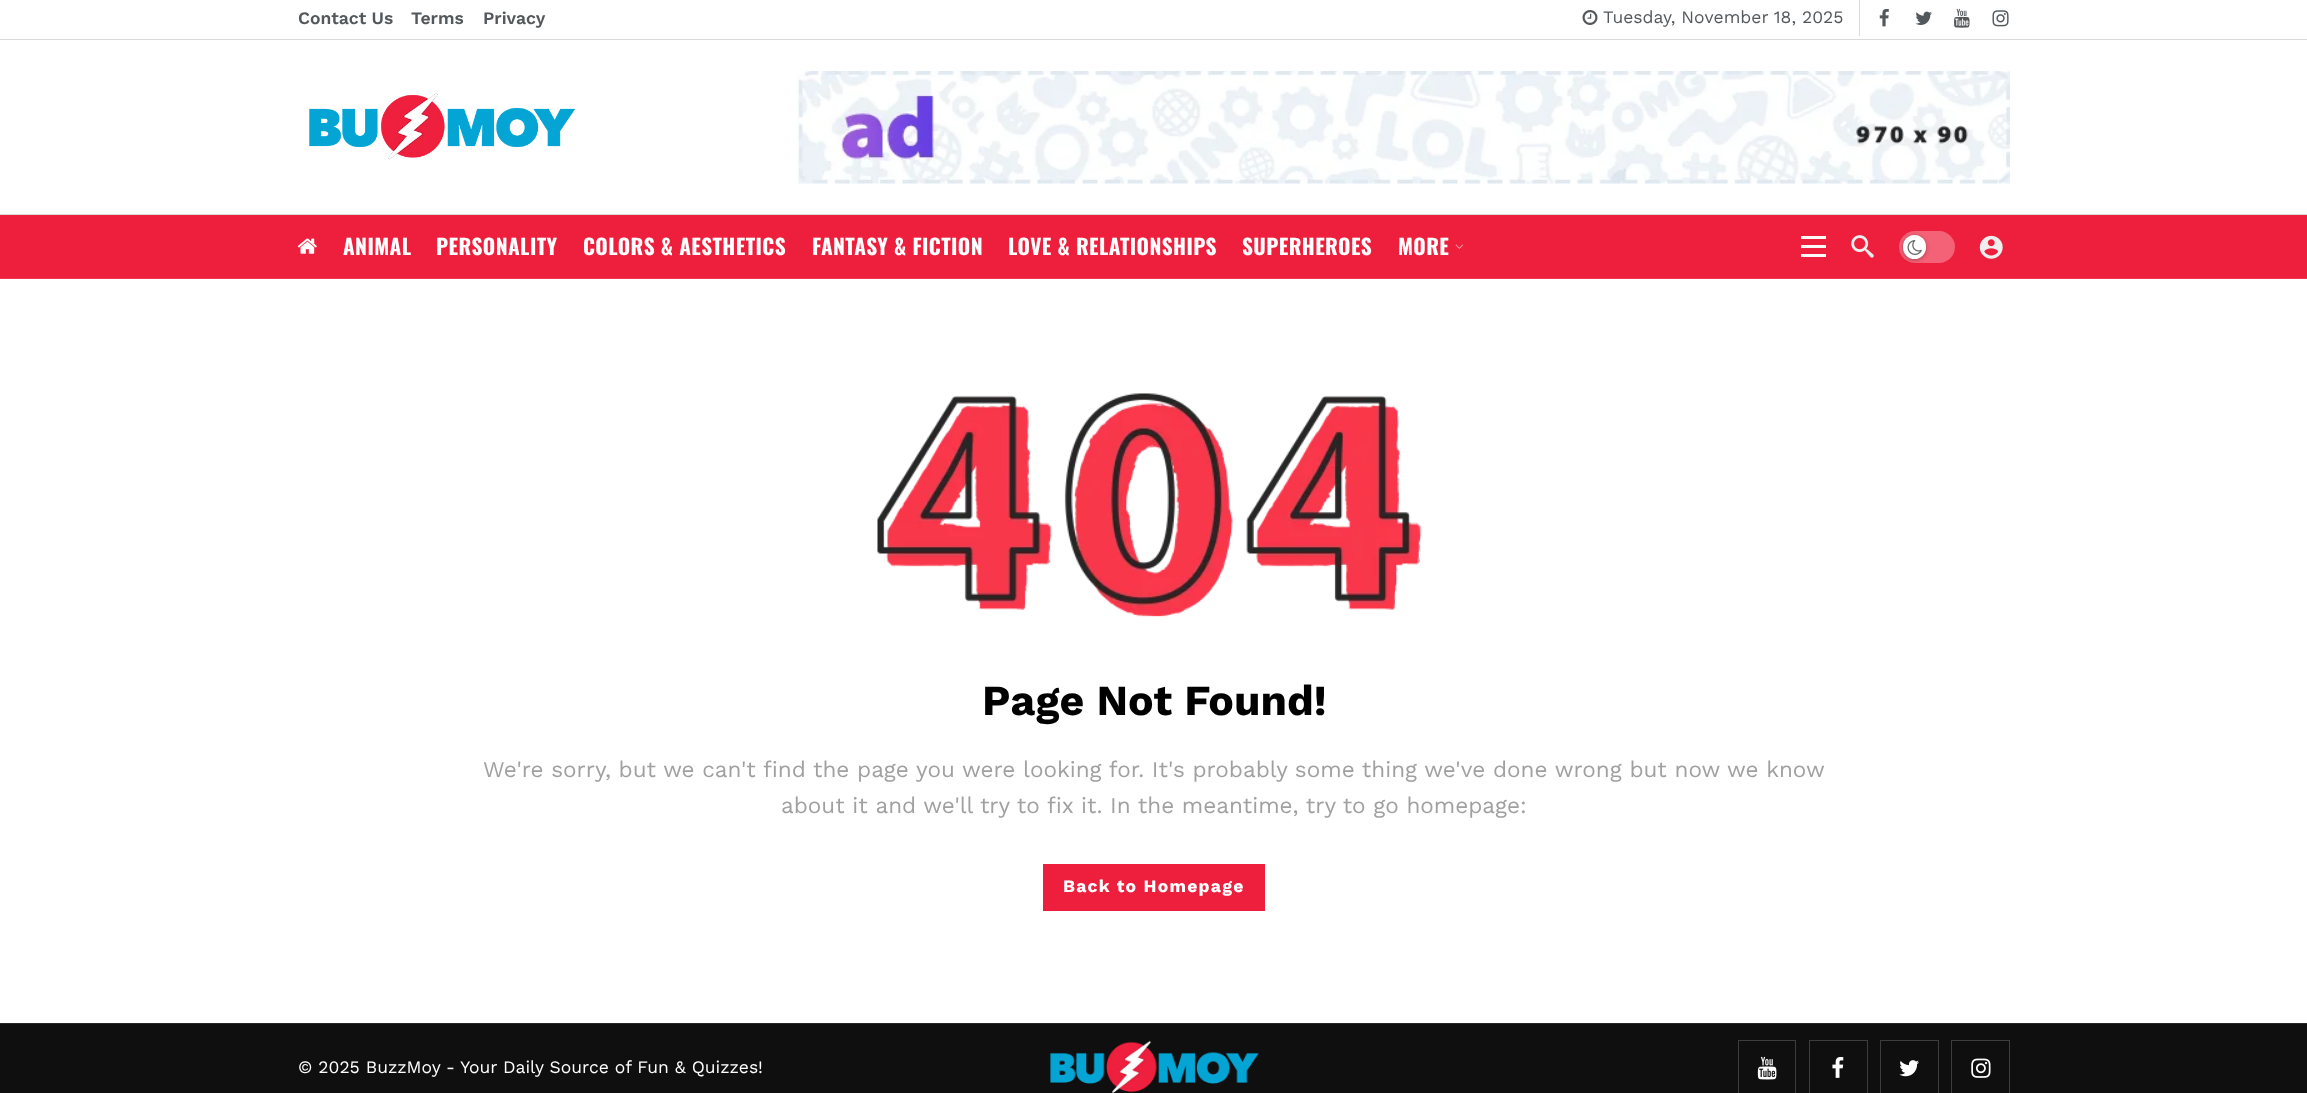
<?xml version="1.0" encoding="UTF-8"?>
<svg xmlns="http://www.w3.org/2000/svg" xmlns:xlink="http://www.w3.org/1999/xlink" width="2307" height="1093">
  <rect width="100%" height="100%" fill="#ffffff" />
  <rect y="39" width="2307" height="1" fill="#d9d9d9" />
  <image x="1582" y="10" width="16" height="15" xlink:href="image1.png" />
  <rect x="1859" width="1" height="36" fill="#d9d9d9" />
  <image x="1879" y="8" width="10" height="19" xlink:href="image2.png" />
  <image x="1915" y="11" width="17" height="14" xlink:href="image3.png" />
  <image x="1954" y="8" width="16" height="20" xlink:href="image4.png" />
  <image x="1992" y="10" width="17" height="17" xlink:href="image5.png" />
  <rect y="214" width="2307" height="1" fill="#d9d9d9" />
  <image x="309" y="93" width="266" height="67" xlink:href="image6.png" />
  <image x="797" y="71" width="1213" height="113" xlink:href="image7.png" />
  <rect y="215" width="2307" height="63" fill="#ee1f3d" />
  <rect y="278" width="2307" height="1" fill="#f03550" />
  <image x="297" y="238" width="20" height="16" xlink:href="image8.png" />
  <image x="1455" y="244" width="9" height="5" xlink:href="image9.png" />
  <rect x="1801" y="236" width="25" height="3" fill="#fafafa" />
  <rect x="1801" y="245" width="25" height="3" fill="#fafafa" />
  <rect x="1801" y="254" width="25" height="3" fill="#fafafa" />
  <image x="1851" y="235" width="23" height="23" xlink:href="image10.png" />
  <rect x="1899" y="231" width="56" height="32" rx="16" fill="#f36277" />
  <rect x="1903" y="236" width="23" height="24" rx="11.5" fill="#000000" fill-opacity="0.3" filter="blur(2px)" />
  <rect x="1903" y="235" width="23" height="24" rx="11.5" fill="#ffffff" />
  <image x="1907" y="240" width="15" height="15" xlink:href="image11.png" />
  <image x="1979" y="235" width="24" height="24" xlink:href="image12.png" />
  <image x="877" y="393" width="545" height="224" xlink:href="image13.png" />
  <rect x="1043" y="864" width="222" height="47" fill="#ee1f3d" />
  <rect y="1024" width="2307" height="69" fill="#0f0f0f" />
  <rect y="1023" width="2307" height="1" fill="#272727" />
  <image x="1050" y="1040" width="209" height="53" xlink:href="image14.png" />
  <rect x="1738.5" y="1040.5" width="57" height="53" fill="none" stroke="#3d3d3d" />
  <image x="1757" y="1056" width="20" height="24" xlink:href="image15.png" />
  <rect x="1809.5" y="1040.5" width="58" height="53" fill="none" stroke="#3d3d3d" />
  <image x="1832" y="1057" width="12" height="21" xlink:href="image16.png" />
  <rect x="1880.5" y="1040.5" width="58" height="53" fill="none" stroke="#3d3d3d" />
  <image x="1899" y="1060" width="20" height="17" xlink:href="image17.png" />
  <rect x="1951.5" y="1040.5" width="58" height="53" fill="none" stroke="#3d3d3d" />
  <image x="1971" y="1058" width="20" height="20" xlink:href="image18.png" />
  <text x="298" y="24" style="font-family: Work Sans; font-size: 17.5px; font-weight: 600; fill: #53585c">Contact Us</text>
  <text x="411" y="24" style="font-family: Work Sans; font-size: 17.5px; font-weight: 600; fill: #53585c">Terms</text>
  <text x="483" y="24" style="font-family: Work Sans; font-size: 17.5px; font-weight: 600; fill: #53585c">Privacy</text>
  <text x="1603" y="23" style="font-family: Work Sans; font-size: 17.5px; fill: #53585c">Tuesday, November 18, 2025</text>
  <text x="343" y="255" style="font-family: Oswald; font-size: 21.25px; font-weight: bold; letter-spacing: 0.4px; fill: #ffffff">ANIMAL</text>
  <text x="436" y="255" style="font-family: Oswald; font-size: 21.25px; font-weight: bold; letter-spacing: 0.4px; fill: #ffffff">PERSONALITY</text>
  <text x="583" y="255" style="font-family: Oswald; font-size: 21.25px; font-weight: bold; letter-spacing: 0.4px; fill: #ffffff">COLORS &amp; AESTHETICS</text>
  <text x="812" y="255" style="font-family: Oswald; font-size: 21.25px; font-weight: bold; letter-spacing: 0.4px; fill: #ffffff">FANTASY &amp; FICTION</text>
  <text x="1008" y="255" style="font-family: Oswald; font-size: 21.25px; font-weight: bold; letter-spacing: 0.4px; fill: #ffffff">LOVE &amp; RELATIONSHIPS</text>
  <text x="1242" y="255" style="font-family: Oswald; font-size: 21.25px; font-weight: bold; letter-spacing: 0.4px; fill: #ffffff">SUPERHEROES</text>
  <text x="1398" y="255" style="font-family: Oswald; font-size: 21.25px; font-weight: bold; letter-spacing: 0.4px; fill: #ffffff">MORE</text>
  <text x="982" y="715" style="font-family: Work Sans; font-size: 42.75px; font-weight: bold; fill: #000000">Page Not Found!</text>
  <text x="483" y="777" style="font-family: Work Sans; font-size: 22.5px; fill: #a0a0a0">We're sorry, but we can't find the page you were looking for. It's probably some thing we've done wrong but now we know</text>
  <text x="781" y="813" style="font-family: Work Sans; font-size: 22.5px; fill: #a0a0a0">about it and we'll try to fix it. In the meantime, try to go homepage:</text>
  <text x="1063" y="892" style="font-family: Work Sans; font-size: 17.5px; font-weight: bold; letter-spacing: 1.25px; fill: #ffffff">Back to Homepage</text>
  <text x="298" y="1073" style="font-family: Work Sans; font-size: 17.5px; fill: #ffffff">© 2025 BuzzMoy</text>
  <text x="446" y="1073" style="font-family: Work Sans; font-size: 17.5px; fill: #ffffff">- Your Daily Source of Fun &amp; Quizzes!</text>
</svg>
